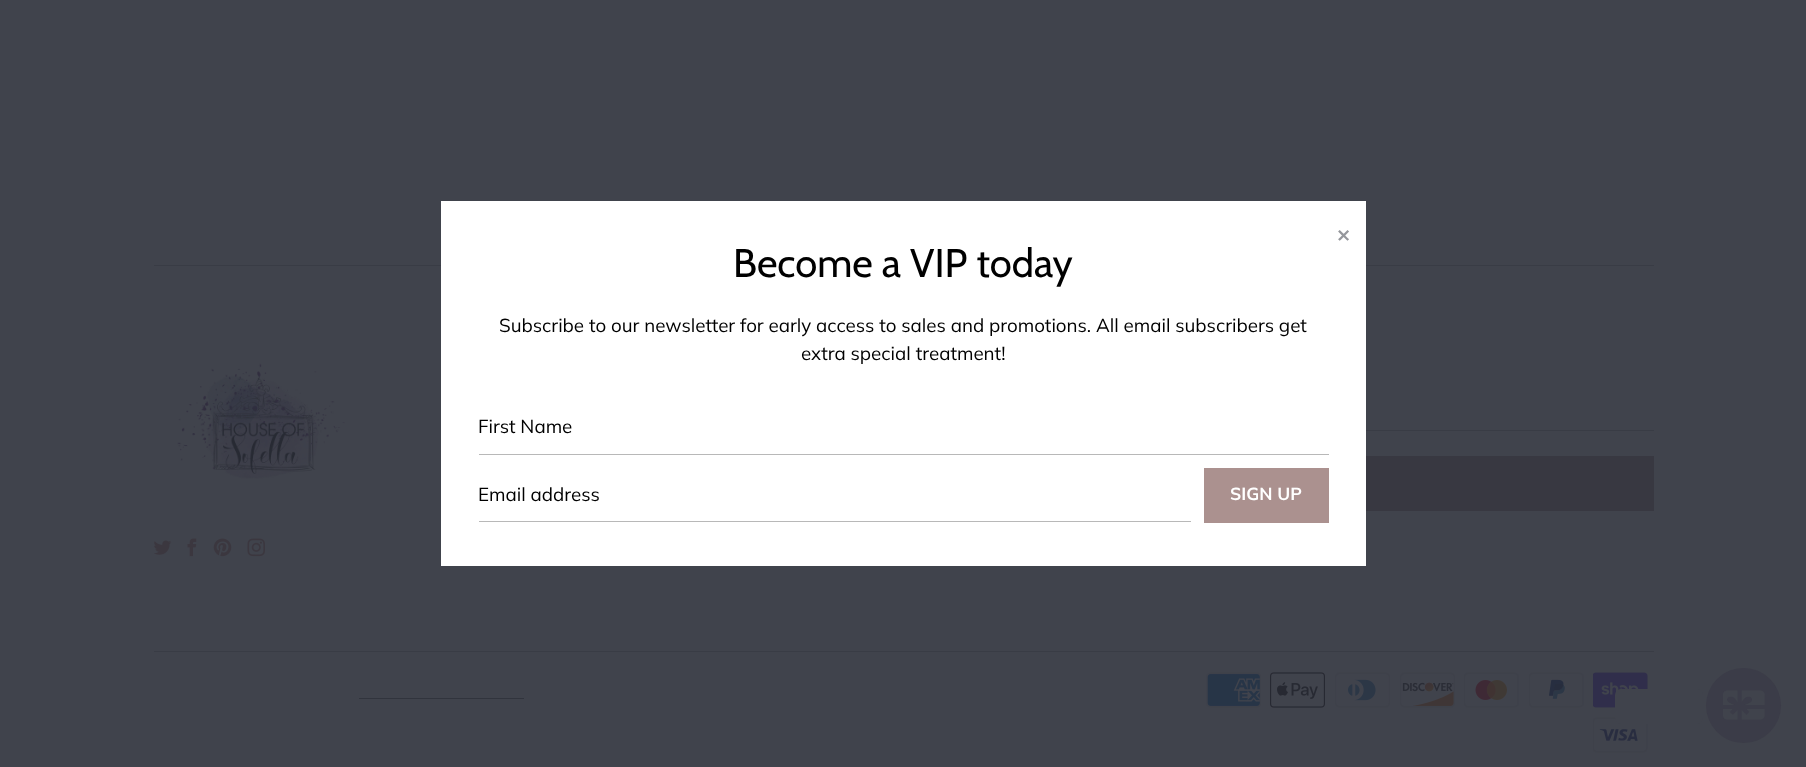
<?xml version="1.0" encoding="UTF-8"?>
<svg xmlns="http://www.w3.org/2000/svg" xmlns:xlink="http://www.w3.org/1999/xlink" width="1806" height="767">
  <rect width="100%" height="100%" fill="#40434c" />
  <rect x="154" y="265" width="1500" height="1" fill="#393c45" />
  <rect x="441" y="201" width="925" height="365" fill="#ffffff" />
  <rect x="479" y="454" width="850" height="1" fill="#b8b8b8" />
  <rect x="479" y="521" width="712" height="1" fill="#b8b8b8" />
  <rect x="1204" y="468" width="125" height="55" fill="#ab918f" />
  <image x="177" y="363" width="168" height="116" xlink:href="image1.png" />
  <image x="154" y="540" width="18" height="15" xlink:href="image2.png" />
  <image x="187" y="538" width="10" height="19" xlink:href="image3.png" />
  <image x="213" y="538" width="19" height="19" xlink:href="image4.png" />
  <image x="247" y="538" width="18" height="19" xlink:href="image5.png" />
  <rect x="1366" y="430" width="288" height="1" fill="#393c45" />
  <rect x="1366" y="456" width="288" height="55" fill="#383841" />
  <rect x="154" y="651" width="1500" height="1" fill="#393c45" />
  <rect x="359" y="698" width="165" height="1" fill="#31343d" />
  <image x="1206" y="672" width="55" height="36" xlink:href="image6.png" />
  <image x="1270" y="672" width="55" height="36" xlink:href="image7.png" />
  <image x="1335" y="672" width="55" height="36" xlink:href="image8.png" />
  <image x="1400" y="672" width="55" height="36" xlink:href="image9.png" />
  <image x="1464" y="672" width="55" height="36" xlink:href="image10.png" />
  <image x="1529" y="672" width="55" height="36" xlink:href="image11.png" />
  <image x="1593" y="672" width="55" height="36" xlink:href="image12.png" />
  <image x="1593" y="717" width="55" height="36" xlink:href="image13.png" />
  <rect x="1615" y="689" width="88" height="35" rx="6" fill="#40434c" />
  <circle cx="1743.5" cy="705.5" r="37.5" fill="#3b3c48" />
  <image x="1723" y="690" width="42" height="30" xlink:href="image14.png" />
  <text x="1336" y="242" style="font-family: DejaVu Sans; font-size: 17.5px; font-weight: bold; fill: #95979c">✕</text>
  <text x="733" y="277" style="font-family: Cabin; font-size: 40px; fill: #000000">Become a VIP today</text>
  <text x="499" y="332" style="font-family: Muli; font-size: 18.75px; fill: #000000">Subscribe to our newsletter for early access to sales and promotions. All email subscribers get</text>
  <text x="801" y="360" style="font-family: Muli; font-size: 18.75px; fill: #000000">extra special treatment!</text>
  <text x="478" y="433" style="font-family: Muli; font-size: 18.75px; fill: #000000">First Name</text>
  <text x="478" y="501" style="font-family: Muli; font-size: 18.75px; fill: #000000">Email address</text>
  <text x="1230" y="500" style="font-family: Muli; font-size: 17.5px; font-weight: bold; fill: #ffffff">SIGN UP</text>
</svg>
